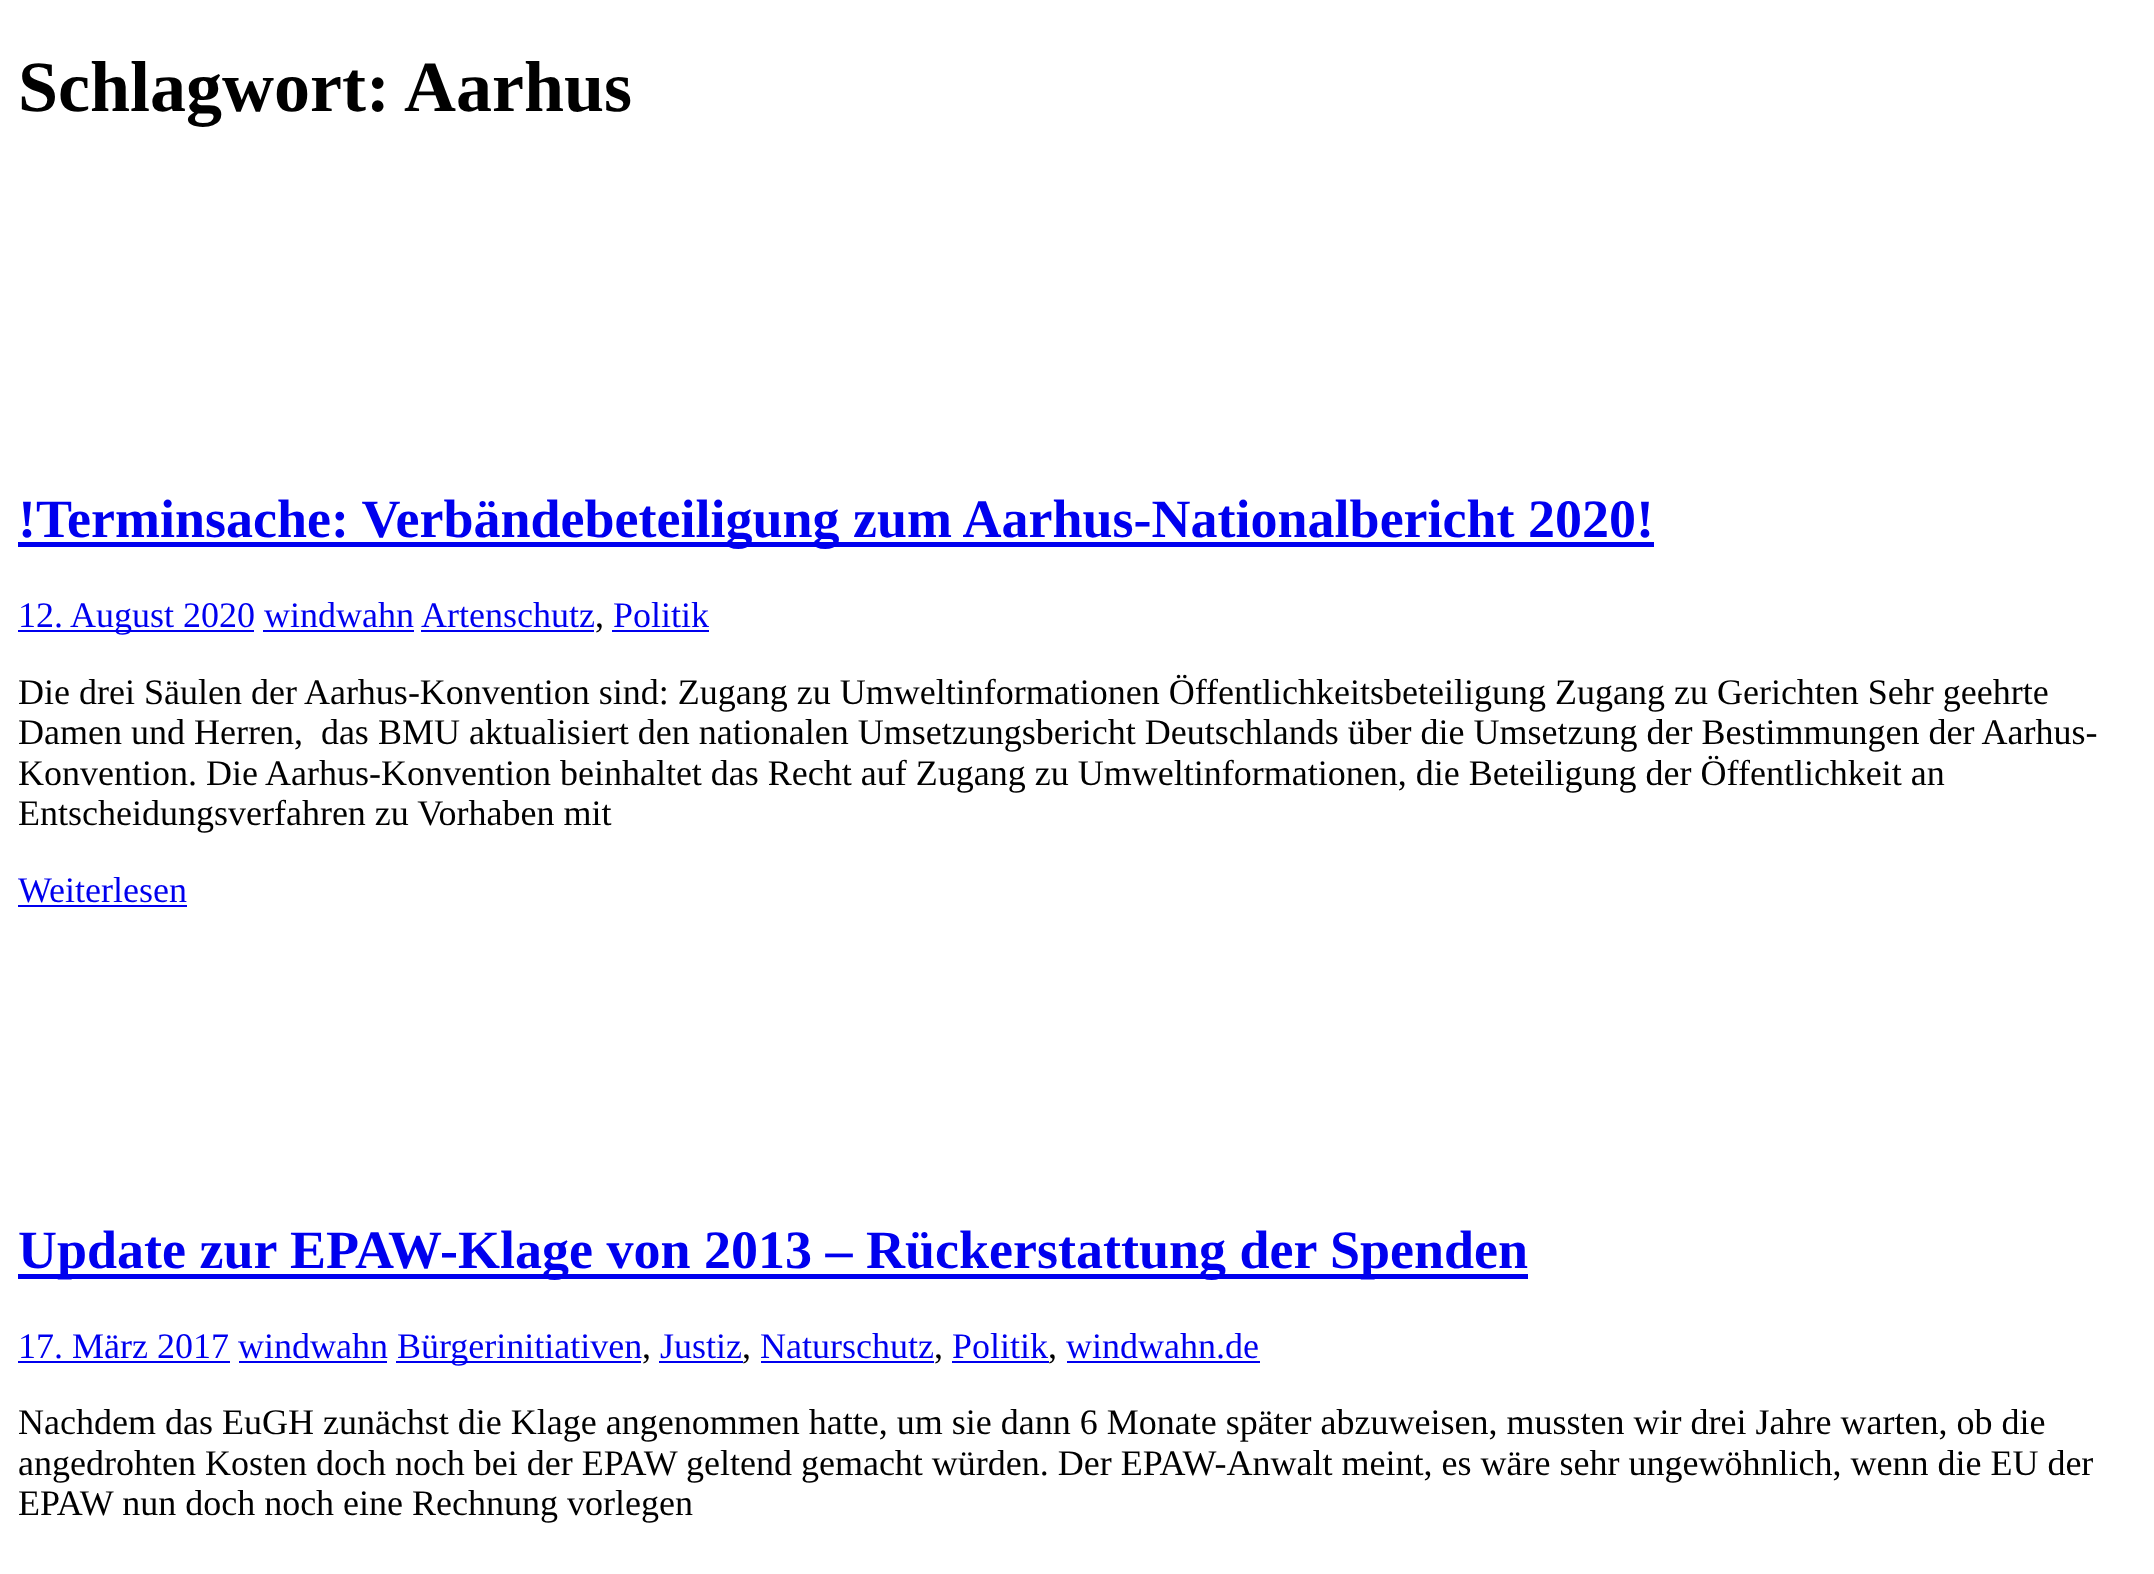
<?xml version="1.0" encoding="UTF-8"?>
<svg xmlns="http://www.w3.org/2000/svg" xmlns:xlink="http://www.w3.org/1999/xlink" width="2154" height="1574">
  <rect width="100%" height="100%" fill="#ffffff" />
  <rect x="18" y="542" width="1636" height="5" fill="#0000ee" />
  <rect x="18" y="630" width="236" height="2" fill="#0000ee" />
  <rect x="421" y="630" width="173" height="2" fill="#0000ee" />
  <rect x="612" y="630" width="97" height="2" fill="#0000ee" />
  <rect x="263" y="630" width="151" height="2" fill="#0000ee" />
  <rect x="18" y="905" width="169" height="2" fill="#0000ee" />
  <rect x="18" y="1274" width="1510" height="5" fill="#0000ee" />
  <rect x="18" y="1361" width="212" height="2" fill="#0000ee" />
  <rect x="396" y="1361" width="245" height="2" fill="#0000ee" />
  <rect x="659" y="1361" width="84" height="2" fill="#0000ee" />
  <rect x="761" y="1361" width="173" height="2" fill="#0000ee" />
  <rect x="952" y="1361" width="97" height="2" fill="#0000ee" />
  <rect x="1067" y="1361" width="193" height="2" fill="#0000ee" />
  <rect x="239" y="1361" width="148" height="2" fill="#0000ee" />
  <text x="18" y="111" style="font-family: Liberation Serif; font-size: 72px; font-weight: bold; fill: #000000">Schlagwort:</text>
  <text x="404" y="111" style="font-family: Liberation Serif; font-size: 72px; font-weight: bold; fill: #000000">Aarhus</text>
  <text x="18" y="537" style="font-family: Liberation Serif; font-size: 54px; font-weight: bold; fill: #0000ee">!Terminsache: Verbändebeteiligung zum Aarhus-Nationalbericht 2020!</text>
  <text x="18" y="627" style="font-family: Liberation Serif; font-size: 36px; fill: #0000ee">12. August 2020 windwahn</text>
  <text x="421" y="627" style="font-family: Liberation Serif; font-size: 36px; fill: #0000ee">Artenschutz</text>
  <text x="595" y="627" style="font-family: Liberation Serif; font-size: 36px; fill: #000000">,</text>
  <text x="613" y="627" style="font-family: Liberation Serif; font-size: 36px; fill: #0000ee">Politik</text>
  <text x="18" y="704" style="font-family: Liberation Serif; font-size: 36px; fill: #000000">Die drei Säulen der Aarhus-Konvention sind: Zugang zu Umweltinformationen Öffentlichkeitsbeteiligung Zugang zu Gerichten Sehr geehrte</text>
  <text x="18" y="744" style="font-family: Liberation Serif; font-size: 36px; fill: #000000" xml:space="preserve">Damen und Herren,  das BMU aktualisiert den nationalen Umsetzungsbericht Deutschlands über die Umsetzung der Bestimmungen der Aarhus-</text>
  <text x="18" y="785" style="font-family: Liberation Serif; font-size: 36px; fill: #000000">Konvention. Die Aarhus-Konvention beinhaltet das Recht auf Zugang zu Umweltinformationen, die Beteiligung der Öffentlichkeit an</text>
  <text x="18" y="825" style="font-family: Liberation Serif; font-size: 36px; fill: #000000">Entscheidungsverfahren zu Vorhaben mit</text>
  <text x="18" y="902" style="font-family: Liberation Serif; font-size: 36px; fill: #0000ee">Weiterlesen</text>
  <text x="18" y="1268" style="font-family: Liberation Serif; font-size: 54px; font-weight: bold; fill: #0000ee">Update zur EPAW-Klage von 2013 – Rückerstattung der Spenden</text>
  <text x="18" y="1358" style="font-family: Liberation Serif; font-size: 36px; fill: #0000ee">17. März 2017 windwahn</text>
  <text x="397" y="1358" style="font-family: Liberation Serif; font-size: 36px; fill: #0000ee">Bürgerinitiativen</text>
  <text x="642" y="1358" style="font-family: Liberation Serif; font-size: 36px; fill: #000000">,</text>
  <text x="660" y="1358" style="font-family: Liberation Serif; font-size: 36px; fill: #0000ee">Justiz</text>
  <text x="742" y="1358" style="font-family: Liberation Serif; font-size: 36px; fill: #000000">,</text>
  <text x="760" y="1358" style="font-family: Liberation Serif; font-size: 36px; fill: #0000ee">Naturschutz</text>
  <text x="934" y="1358" style="font-family: Liberation Serif; font-size: 36px; fill: #000000">,</text>
  <text x="952" y="1358" style="font-family: Liberation Serif; font-size: 36px; fill: #0000ee">Politik</text>
  <text x="1048" y="1358" style="font-family: Liberation Serif; font-size: 36px; fill: #000000">,</text>
  <text x="1066" y="1358" style="font-family: Liberation Serif; font-size: 36px; fill: #0000ee">windwahn.de</text>
  <text x="18" y="1434" style="font-family: Liberation Serif; font-size: 36px; fill: #000000">Nachdem das EuGH zunächst die Klage angenommen hatte, um sie dann 6 Monate später abzuweisen, mussten wir drei Jahre warten, ob die</text>
  <text x="18" y="1475" style="font-family: Liberation Serif; font-size: 36px; fill: #000000">angedrohten Kosten doch noch bei der EPAW geltend gemacht würden. Der EPAW-Anwalt meint, es wäre sehr ungewöhnlich, wenn die EU der</text>
  <text x="18" y="1515" style="font-family: Liberation Serif; font-size: 36px; fill: #000000">EPAW nun doch noch eine Rechnung vorlegen</text>
</svg>
